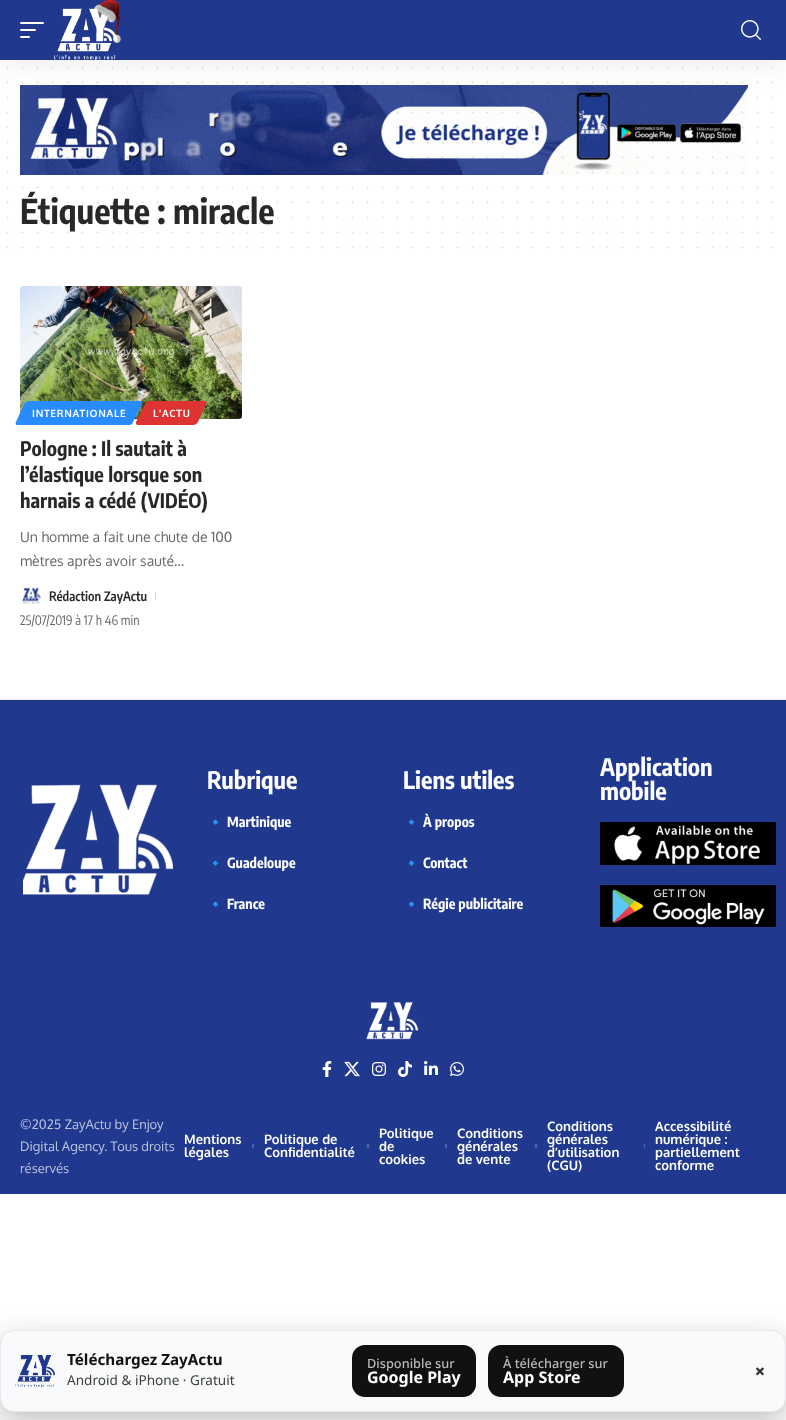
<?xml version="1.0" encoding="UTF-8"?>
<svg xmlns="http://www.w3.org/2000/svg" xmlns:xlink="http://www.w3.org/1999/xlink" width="786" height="1420">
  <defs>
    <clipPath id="clip1"><rect x="207" y="811" width="176" height="21" /></clipPath>
    <clipPath id="clip2"><rect x="207" y="852" width="176" height="21" /></clipPath>
    <clipPath id="clip3"><rect x="207" y="893" width="176" height="21" /></clipPath>
  </defs>
  <rect width="100%" height="100%" fill="#ffffff" />
  <path d="M 7.5 67.5 h 765.2" fill="none" stroke="#dfdfdf" stroke-width="2" stroke-linecap="round" stroke-dasharray="0 15" />
  <path d="M 7.5 82.5 h 765.2" fill="none" stroke="#dfdfdf" stroke-width="2" stroke-linecap="round" stroke-dasharray="0 15" />
  <image x="20" y="85" width="728" height="90" xlink:href="image3.png" />
  <path d="M 7.5 97.5 h 765.2" fill="none" stroke="#282828" stroke-opacity="0.15" stroke-width="2" stroke-linecap="round" stroke-dasharray="0 15" />
  <rect y="4" width="786" height="60" fill="#000000" fill-opacity="0.07" filter="blur(15px)" />
  <rect width="786" height="60" fill="#20398e" />
  <rect x="20" y="22" width="24" height="2" rx="1" fill="#ffffff" />
  <rect x="20" y="29" width="16" height="2" rx="1" fill="#ffffff" />
  <rect x="20" y="36" width="10" height="2" rx="1" fill="#ffffff" />
  <image x="54" y="0" width="67" height="60" xlink:href="image1.png" />
  <image x="741" y="20" width="20" height="20" xlink:href="image2.png" />
  <path d="M 7.5 112.5 h 765.2" fill="none" stroke="#282828" stroke-opacity="0.15" stroke-width="2" stroke-linecap="round" stroke-dasharray="0 15" />
  <path d="M 7.5 127.5 h 765.2" fill="none" stroke="#282828" stroke-opacity="0.15" stroke-width="2" stroke-linecap="round" stroke-dasharray="0 15" />
  <path d="M 7.5 142.5 h 765.2" fill="none" stroke="#282828" stroke-opacity="0.15" stroke-width="2" stroke-linecap="round" stroke-dasharray="0 15" />
  <path d="M 7.5 157.5 h 765.2" fill="none" stroke="#282828" stroke-opacity="0.15" stroke-width="2" stroke-linecap="round" stroke-dasharray="0 15" />
  <path d="M 7.5 172.5 h 765.2" fill="none" stroke="#282828" stroke-opacity="0.15" stroke-width="2" stroke-linecap="round" stroke-dasharray="0 15" />
  <path d="M 7.5 187.5 h 765.2" fill="none" stroke="#dfdfdf" stroke-width="2" stroke-linecap="round" stroke-dasharray="0 15" />
  <path d="M 7.5 247.5 h 765.2" fill="none" stroke="#dfdfdf" stroke-width="2" stroke-linecap="round" stroke-dasharray="0 15" />
  <image x="20" y="286" width="222" height="133" xlink:href="image4.png" />
  <path d="M 29 401 h 111 c 2 0 3 1 2 3 l -9 18 c 0 2 -2 3 -4 3 h -112 c -1 0 -2 -1 -1 -3 l 8 -18 c 1 -2 3 -3 5 -3 z" fill="#288cff" />
  <path d="M 149 401 h 56 c 1 0 2 1 1 3 l -8 18 c -1 2 -3 3 -5 3 h -55 c -2 0 -2 -1 -2 -3 l 9 -18 c 1 -2 3 -3 4 -3 z" fill="#dd3333" />
  <image x="22" y="587" width="20" height="17" xlink:href="image5.png" />
  <rect x="155" y="592" width="1" height="8" fill="#d1d1d1" />
  <rect y="699" width="786" height="1" fill="#ededed" />
  <rect y="700" width="786" height="494" fill="#20398e" />
  <image x="23" y="784" width="150" height="111" xlink:href="image6.png" />
  <image x="600" y="822" width="176" height="43" xlink:href="image7.png" />
  <image x="600" y="885" width="176" height="42" xlink:href="image8.png" />
  <image x="366" y="1002" width="53" height="38" xlink:href="image9.png" />
  <image x="322" y="1061" width="10" height="16" xlink:href="image10.png" />
  <image x="344" y="1061" width="16" height="16" xlink:href="image11.png" />
  <image x="372" y="1062" width="14" height="14" xlink:href="image12.png" />
  <image x="398" y="1061" width="14" height="16" xlink:href="image13.png" />
  <image x="424" y="1061" width="14" height="14" xlink:href="image14.png" />
  <image x="450" y="1062" width="14" height="14" xlink:href="image15.png" />
  <rect x="252" y="1144" width="2" height="4" fill="#4d61a5" />
  <rect x="367" y="1144" width="2" height="4" fill="#4d61a5" />
  <rect x="445" y="1144" width="2" height="4" fill="#4d61a5" />
  <rect x="535" y="1144" width="2" height="4" fill="#4d61a5" />
  <rect x="644" y="1144" width="1" height="4" fill="#4d61a5" />
  <rect y="1340" width="786" height="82" rx="14" fill="#000000" fill-opacity="0.25" filter="blur(15px)" />
  <rect x="0.5" y="1330.5" width="785" height="81" rx="13.5" fill="#f8fafc" stroke="#e5e7eb" />
  <image x="15" y="1355" width="40" height="32" xlink:href="image16.png" />
  <rect x="352" y="1345" width="124" height="52" rx="13" fill="#111111" />
  <rect x="352.5" y="1345.5" width="123" height="51" rx="12.5" fill="none" stroke="#000000" stroke-opacity="0.12" />
  <rect x="488" y="1345" width="136" height="52" rx="13" fill="#111111" />
  <rect x="488.5" y="1345.5" width="135" height="51" rx="12.5" fill="none" stroke="#000000" stroke-opacity="0.12" />
  <text x="20" y="224" style="font-family: Encode Sans Condensed; font-size: 34px; font-weight: bold; fill: #282828">Étiquette : miracle</text>
  <path d="M 7.5 232.5 h 765.2" fill="none" stroke="#dfdfdf" stroke-width="2" stroke-linecap="round" stroke-dasharray="0 15" />
  <path d="M 7.5 217.5 h 765.2" fill="none" stroke="#282828" stroke-opacity="0.15" stroke-width="2" stroke-linecap="round" stroke-dasharray="0 15" />
  <path d="M 7.5 202.5 h 765.2" fill="none" stroke="#282828" stroke-opacity="0.15" stroke-width="2" stroke-linecap="round" stroke-dasharray="0 15" />
  <text x="32" y="417" style="font-family: Oxygen; font-size: 10px; font-weight: bold; letter-spacing: 0.75px; fill: #ffffff">INTERNATIONALE</text>
  <text x="153" y="417" style="font-family: Oxygen; font-size: 10px; font-weight: bold; letter-spacing: 0.75px; fill: #ffffff">L'ACTU</text>
  <text x="20" y="456" style="font-family: Encode Sans Condensed; font-size: 20px; font-weight: bold; fill: #282828">Pologne : Il sautait à</text>
  <text x="20" y="482" style="font-family: Encode Sans Condensed; font-size: 20px; font-weight: bold; fill: #282828">l’élastique lorsque son</text>
  <text x="20" y="508" style="font-family: Encode Sans Condensed; font-size: 20px; font-weight: bold; fill: #282828">harnais a cédé (VIDÉO)</text>
  <text x="20" y="542" style="font-family: Oxygen; font-size: 14px; fill: #666666">Un homme a fait une chute de 100</text>
  <text x="20" y="566" style="font-family: Oxygen; font-size: 14px; fill: #666666">mètres après avoir sauté…</text>
  <text x="49" y="601" style="font-family: Encode Sans Condensed; font-size: 13px; font-weight: 600; fill: #282828">Rédaction ZayActu</text>
  <text x="20" y="625" style="font-family: Encode Sans Condensed; font-size: 13px; fill: #666666">25/07/2019 à 17 h 46 min</text>
  <text x="207" y="789" style="font-family: Encode Sans Condensed; font-size: 24px; font-weight: bold; fill: #ffffff">Rubrique</text>
  <g clip-path="url(#clip1)">
    <text x="207" y="827" style="font-family: Noto Color Emoji; font-size: 14px; font-weight: bold; fill: #ffffff">🔹</text>
  </g>
  <text x="227" y="827" style="font-family: Encode Sans Condensed; font-size: 14px; font-weight: bold; fill: #ffffff">Martinique</text>
  <g clip-path="url(#clip2)">
    <text x="207" y="868" style="font-family: Noto Color Emoji; font-size: 14px; font-weight: bold; fill: #ffffff">🔹</text>
  </g>
  <text x="227" y="868" style="font-family: Encode Sans Condensed; font-size: 14px; font-weight: bold; fill: #ffffff">Guadeloupe</text>
  <g clip-path="url(#clip3)">
    <text x="207" y="909" style="font-family: Noto Color Emoji; font-size: 14px; font-weight: bold; fill: #ffffff">🔹</text>
  </g>
  <text x="227" y="909" style="font-family: Encode Sans Condensed; font-size: 14px; font-weight: bold; fill: #ffffff">France</text>
  <text x="403" y="789" style="font-family: Encode Sans Condensed; font-size: 24px; font-weight: bold; fill: #ffffff">Liens utiles</text>
  <text x="403" y="827" style="font-family: Noto Color Emoji; font-size: 14px; font-weight: bold; fill: #ffffff">🔹</text>
  <text x="423" y="827" style="font-family: Encode Sans Condensed; font-size: 14px; font-weight: bold; fill: #ffffff">À propos</text>
  <text x="403" y="868" style="font-family: Noto Color Emoji; font-size: 14px; font-weight: bold; fill: #ffffff">🔹</text>
  <text x="423" y="868" style="font-family: Encode Sans Condensed; font-size: 14px; font-weight: bold; fill: #ffffff">Contact</text>
  <text x="403" y="909" style="font-family: Noto Color Emoji; font-size: 14px; font-weight: bold; fill: #ffffff">🔹</text>
  <text x="423" y="909" style="font-family: Encode Sans Condensed; font-size: 14px; font-weight: bold; fill: #ffffff">Régie publicitaire</text>
  <text x="600" y="776" style="font-family: Encode Sans Condensed; font-size: 24px; font-weight: bold; fill: #ffffff">Application</text>
  <text x="600" y="800" style="font-family: Encode Sans Condensed; font-size: 24px; font-weight: bold; fill: #ffffff">mobile</text>
  <text x="20" y="1129" style="font-family: Oxygen; font-size: 13px; fill: #bcc4dd">©2025 ZayActu by Enjoy</text>
  <text x="20" y="1151" style="font-family: Oxygen; font-size: 13px; fill: #bcc4dd">Digital Agency. Tous droits</text>
  <text x="20" y="1173" style="font-family: Oxygen; font-size: 13px; fill: #bcc4dd">réservés</text>
  <text x="184" y="1144" style="font-family: Oxygen; font-size: 13px; font-weight: bold; fill: #ffffff">Mentions</text>
  <text x="184" y="1157" style="font-family: Oxygen; font-size: 13px; font-weight: bold; fill: #ffffff">légales</text>
  <text x="264" y="1144" style="font-family: Oxygen; font-size: 13px; font-weight: bold; fill: #ffffff">Politique de</text>
  <text x="264" y="1157" style="font-family: Oxygen; font-size: 13px; font-weight: bold; fill: #ffffff">Confidentialité</text>
  <text x="379" y="1138" style="font-family: Oxygen; font-size: 13px; font-weight: bold; fill: #ffffff">Politique</text>
  <text x="379" y="1151" style="font-family: Oxygen; font-size: 13px; font-weight: bold; fill: #ffffff">de</text>
  <text x="379" y="1164" style="font-family: Oxygen; font-size: 13px; font-weight: bold; fill: #ffffff">cookies</text>
  <text x="457" y="1138" style="font-family: Oxygen; font-size: 13px; font-weight: bold; fill: #ffffff">Conditions</text>
  <text x="457" y="1151" style="font-family: Oxygen; font-size: 13px; font-weight: bold; fill: #ffffff">générales</text>
  <text x="457" y="1164" style="font-family: Oxygen; font-size: 13px; font-weight: bold; fill: #ffffff">de vente</text>
  <text x="547" y="1131" style="font-family: Oxygen; font-size: 13px; font-weight: bold; fill: #ffffff">Conditions</text>
  <text x="547" y="1144" style="font-family: Oxygen; font-size: 13px; font-weight: bold; fill: #ffffff">générales</text>
  <text x="547" y="1157" style="font-family: Oxygen; font-size: 13px; font-weight: bold; fill: #ffffff">d’utilisation</text>
  <text x="547" y="1170" style="font-family: Oxygen; font-size: 13px; font-weight: bold; fill: #ffffff">(CGU)</text>
  <text x="655" y="1131" style="font-family: Oxygen; font-size: 13px; font-weight: bold; fill: #ffffff">Accessibilité</text>
  <text x="655" y="1144" style="font-family: Oxygen; font-size: 13px; font-weight: bold; fill: #ffffff">numérique :</text>
  <text x="655" y="1157" style="font-family: Oxygen; font-size: 13px; font-weight: bold; fill: #ffffff">partiellement</text>
  <text x="655" y="1170" style="font-family: Oxygen; font-size: 13px; font-weight: bold; fill: #ffffff">conforme</text>
  <text x="67" y="1365" style="font-family: Noto Sans; font-size: 15.25px; font-weight: bold; fill: #111111">Téléchargez ZayActu</text>
  <text x="67" y="1385" style="font-family: Noto Sans; font-size: 13.6px; fill: #3f4040">Android &amp; iPhone · Gratuit</text>
  <text x="367" y="1368" style="font-family: Noto Sans; font-size: 12.75px; font-weight: 500; fill: #b8b8b8">Disponible sur</text>
  <text x="367" y="1383" style="font-family: Noto Sans; font-size: 16px; font-weight: bold; fill: #ffffff">Google Play</text>
  <text x="503" y="1368" style="font-family: Noto Sans; font-size: 12.75px; font-weight: 500; fill: #b8b8b8">À télécharger sur</text>
  <text x="503" y="1383" style="font-family: Noto Sans; font-size: 16px; font-weight: bold; fill: #ffffff">App Store</text>
  <text x="755" y="1379" style="font-family: Encode Sans Condensed; font-size: 20px; font-weight: bold; fill: #343434">×</text>
</svg>
